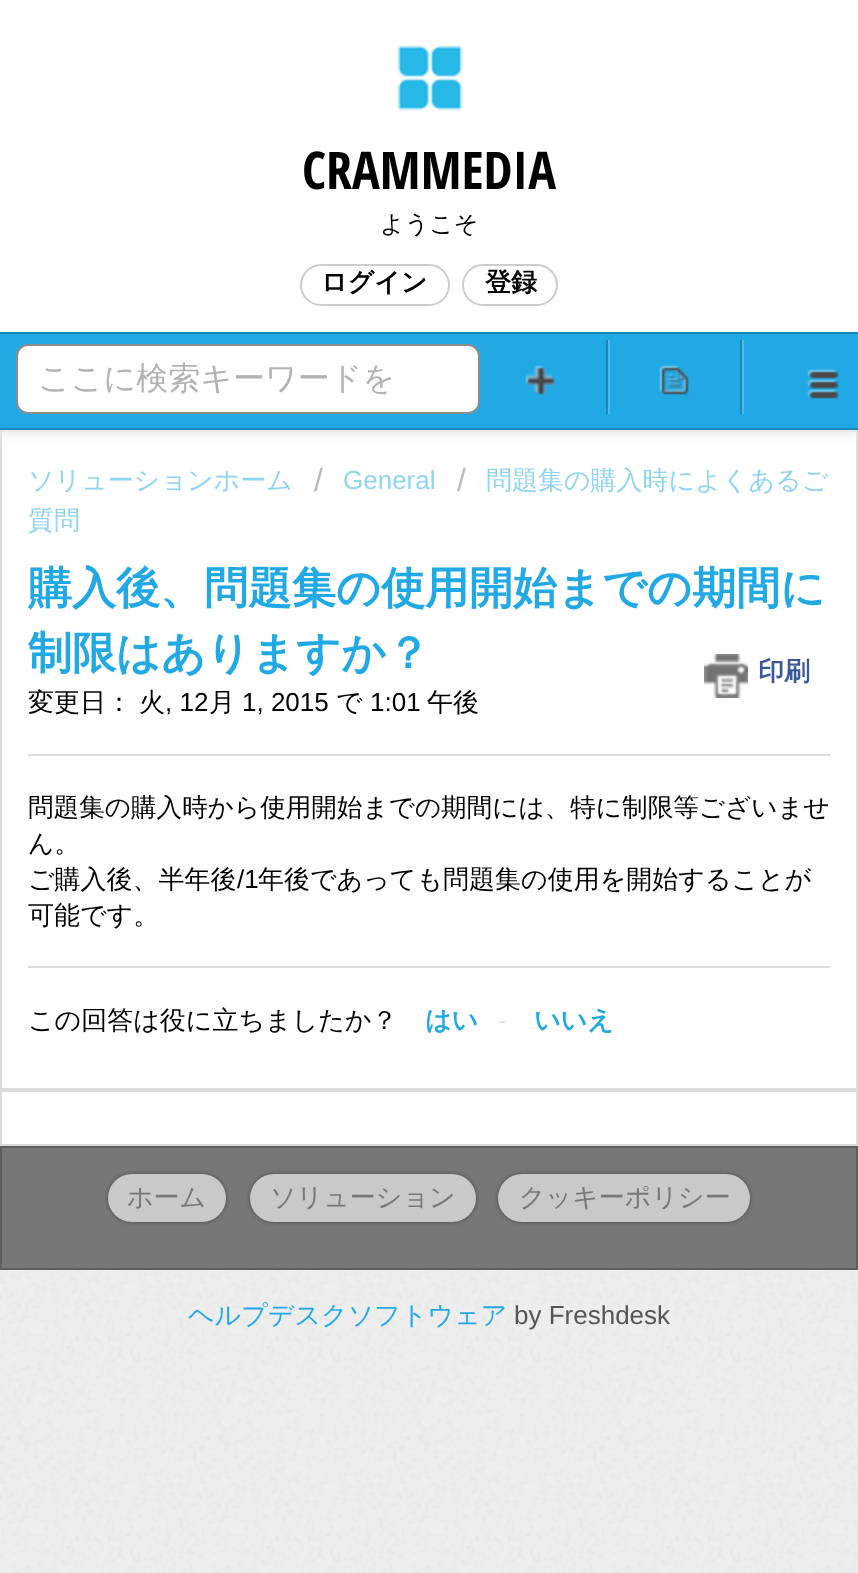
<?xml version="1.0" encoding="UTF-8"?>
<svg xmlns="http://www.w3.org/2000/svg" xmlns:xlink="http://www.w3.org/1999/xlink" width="858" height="1573">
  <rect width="100%" height="100%" fill="#efefef" />
  <image x="0" y="1270" width="858" height="303" xlink:href="image1.png" />
  <rect width="858" height="332" fill="#ffffff" />
  <image x="397" y="45" width="66" height="66" xlink:href="image2.png" />
  <rect x="301" y="265" width="148" height="40" rx="20" fill="none" stroke="#cccccc" stroke-width="2" />
  <rect x="463" y="265" width="94" height="40" rx="20" fill="none" stroke="#cccccc" stroke-width="2" />
  <rect x="1" y="431" width="856" height="658" fill="#ffffff" stroke="#dcdcdc" stroke-width="2" />
  <rect y="338" width="858" height="98" fill="#eeeeee" filter="blur(4px)" />
  <rect y="334" width="858" height="94" fill="#21a9e6" />
  <rect y="332" width="858" height="2" fill="#1a87b8" />
  <rect y="428" width="858" height="2" fill="#1a87b8" />
  <image x="807" y="369" width="32" height="30" xlink:href="image3.png" />
  <rect x="17" y="345" width="462" height="68" rx="11" fill="#ffffff" stroke="#8c8c8c" stroke-width="2" />
  <rect x="608" y="340" width="2" height="74" fill="#4dbaeb" />
  <rect x="606" y="340" width="2" height="74" fill="#1a87b8" />
  <image x="525" y="365" width="30" height="30" xlink:href="image4.png" />
  <rect x="742" y="340" width="2" height="74" fill="#4dbaeb" />
  <rect x="740" y="340" width="2" height="74" fill="#1a87b8" />
  <image x="659" y="365" width="30" height="30" xlink:href="image5.png" />
  <image x="704" y="654" width="44" height="44" xlink:href="image6.png" />
  <rect x="28" y="754" width="802" height="2" fill="#dcdcdc" />
  <rect x="28" y="966" width="802" height="2" fill="#dcdcdc" />
  <rect x="1" y="1091" width="856" height="54" fill="#ffffff" stroke="#dcdcdc" stroke-width="2" />
  <rect x="1" y="1147" width="856" height="122" fill="#777777" stroke="#5e5e5e" stroke-width="2" />
  <rect x="108" y="1174" width="118" height="48" rx="24" fill="#494949" filter="blur(2px)" />
  <rect x="108" y="1174" width="118" height="48" rx="24" fill="#c9c9c9" />
  <rect x="250" y="1174" width="226" height="48" rx="24" fill="#494949" filter="blur(2px)" />
  <rect x="250" y="1174" width="226" height="48" rx="24" fill="#c9c9c9" />
  <rect x="498" y="1174" width="252" height="48" rx="24" fill="#494949" filter="blur(2px)" />
  <rect x="498" y="1174" width="252" height="48" rx="24" fill="#c9c9c9" />
  <text x="302" y="189" style="font-family: Open Sans Condensed; font-size: 52px; font-weight: bold; fill: #000000">CRAMMEDIA</text>
  <text x="380" y="232" style="font-family: WenQuanYi Zen Hei; font-size: 24px; font-weight: 500; fill: #000000">ようこそ</text>
  <text x="321" y="291" style="font-family: WenQuanYi Zen Hei; font-size: 26px; font-weight: bold; fill: #000000">ログイン</text>
  <text x="485" y="291" style="font-family: WenQuanYi Zen Hei; font-size: 26px; font-weight: bold; fill: #000000">登録</text>
  <text x="38" y="389" style="font-family: WenQuanYi Zen Hei; font-size: 32px; font-weight: 500; fill: #b2b2b2">ここに検索キーワードを</text>
  <text x="28" y="489" style="font-family: WenQuanYi Zen Hei; font-size: 26px; font-weight: 500; fill: #90d4f3">ソリューションホーム</text>
  <text x="314" y="491" style="font-family: Liberation Sans; font-size: 32px; fill: #bbbbbb">/</text>
  <text x="343" y="489" style="font-family: Liberation Sans; font-size: 26px; fill: #90d4f3">General</text>
  <text x="457" y="491" style="font-family: Liberation Sans; font-size: 32px; fill: #bbbbbb">/</text>
  <text x="486" y="489" style="font-family: WenQuanYi Zen Hei; font-size: 26px; font-weight: 500; fill: #90d4f3">問題集の購入時によくあるご</text>
  <text x="28" y="529" style="font-family: WenQuanYi Zen Hei; font-size: 26px; font-weight: 500; fill: #90d4f3">質問</text>
  <text x="28" y="603" style="font-family: WenQuanYi Zen Hei; font-size: 44px; font-weight: bold; fill: #21a9e6">購入後、問題集の使用開始までの期間に</text>
  <text x="28" y="668" style="font-family: WenQuanYi Zen Hei; font-size: 44px; font-weight: bold; fill: #21a9e6">制限はありますか？</text>
  <text x="758" y="680" style="font-family: WenQuanYi Zen Hei; font-size: 26px; font-weight: bold; fill: #3b5998">印刷</text>
  <text x="28" y="711" style="font-family: WenQuanYi Zen Hei; font-size: 26px; font-weight: 500; fill: #000000">変更日：</text>
  <text x="139" y="711" style="font-family: WenQuanYi Zen Hei; font-size: 26px; font-weight: 500; fill: #000000">火</text>
  <text x="165" y="711" style="font-family: Liberation Sans; font-size: 26px; fill: #000000">, 12</text>
  <text x="209" y="711" style="font-family: WenQuanYi Zen Hei; font-size: 26px; font-weight: 500; fill: #000000">月</text>
  <text x="242" y="711" style="font-family: Liberation Sans; font-size: 26px; fill: #000000">1, 2015</text>
  <text x="336" y="711" style="font-family: WenQuanYi Zen Hei; font-size: 26px; font-weight: 500; fill: #000000">で</text>
  <text x="370" y="711" style="font-family: Liberation Sans; font-size: 26px; fill: #000000">1:01</text>
  <text x="427" y="711" style="font-family: WenQuanYi Zen Hei; font-size: 26px; font-weight: 500; fill: #000000">午後</text>
  <text x="28" y="816" style="font-family: WenQuanYi Zen Hei; font-size: 25.6px; font-weight: 500; fill: #000000">問題集の購入時から使用開始までの期間には、特に制限等ございませ</text>
  <text x="28" y="852" style="font-family: WenQuanYi Zen Hei; font-size: 25.6px; font-weight: 500; fill: #000000">ん。</text>
  <text x="28" y="888" style="font-family: WenQuanYi Zen Hei; font-size: 26px; font-weight: 500; fill: #000000">ご購入後、半年後</text>
  <text x="237" y="888" style="font-family: Liberation Sans; font-size: 26px; fill: #000000">/1</text>
  <text x="258" y="888" style="font-family: WenQuanYi Zen Hei; font-size: 26px; font-weight: 500; fill: #000000">年後であっても問題集の使用を開始することが</text>
  <text x="28" y="924" style="font-family: WenQuanYi Zen Hei; font-size: 26px; font-weight: 500; fill: #000000">可能です。</text>
  <text x="28" y="1029" style="font-family: WenQuanYi Zen Hei; font-size: 26px; font-weight: 500; fill: #000000">この回答は役に立ちましたか？</text>
  <text x="425" y="1029" style="font-family: WenQuanYi Zen Hei; font-size: 26px; font-weight: bold; fill: #21a9e6">はい</text>
  <text x="498" y="1029" style="font-family: Liberation Sans; font-size: 26px; fill: #e5e5e5">-</text>
  <text x="534" y="1029" style="font-family: WenQuanYi Zen Hei; font-size: 26px; font-weight: bold; fill: #21a9e6">いいえ</text>
  <text x="127" y="1206" style="font-family: WenQuanYi Zen Hei; font-size: 26px; font-weight: 500; fill: #777777">ホーム</text>
  <text x="270" y="1206" style="font-family: WenQuanYi Zen Hei; font-size: 26px; font-weight: 500; fill: #777777">ソリューション</text>
  <text x="519" y="1206" style="font-family: WenQuanYi Zen Hei; font-size: 26px; font-weight: 500; fill: #777777">クッキーポリシー</text>
  <text x="188" y="1324" style="font-family: WenQuanYi Zen Hei; font-size: 26px; font-weight: 500; fill: #21a9e6">ヘルプデスクソフトウェア</text>
  <text x="514" y="1324" style="font-family: Liberation Sans; font-size: 26px; fill: #555555">by Freshdesk</text>
</svg>
